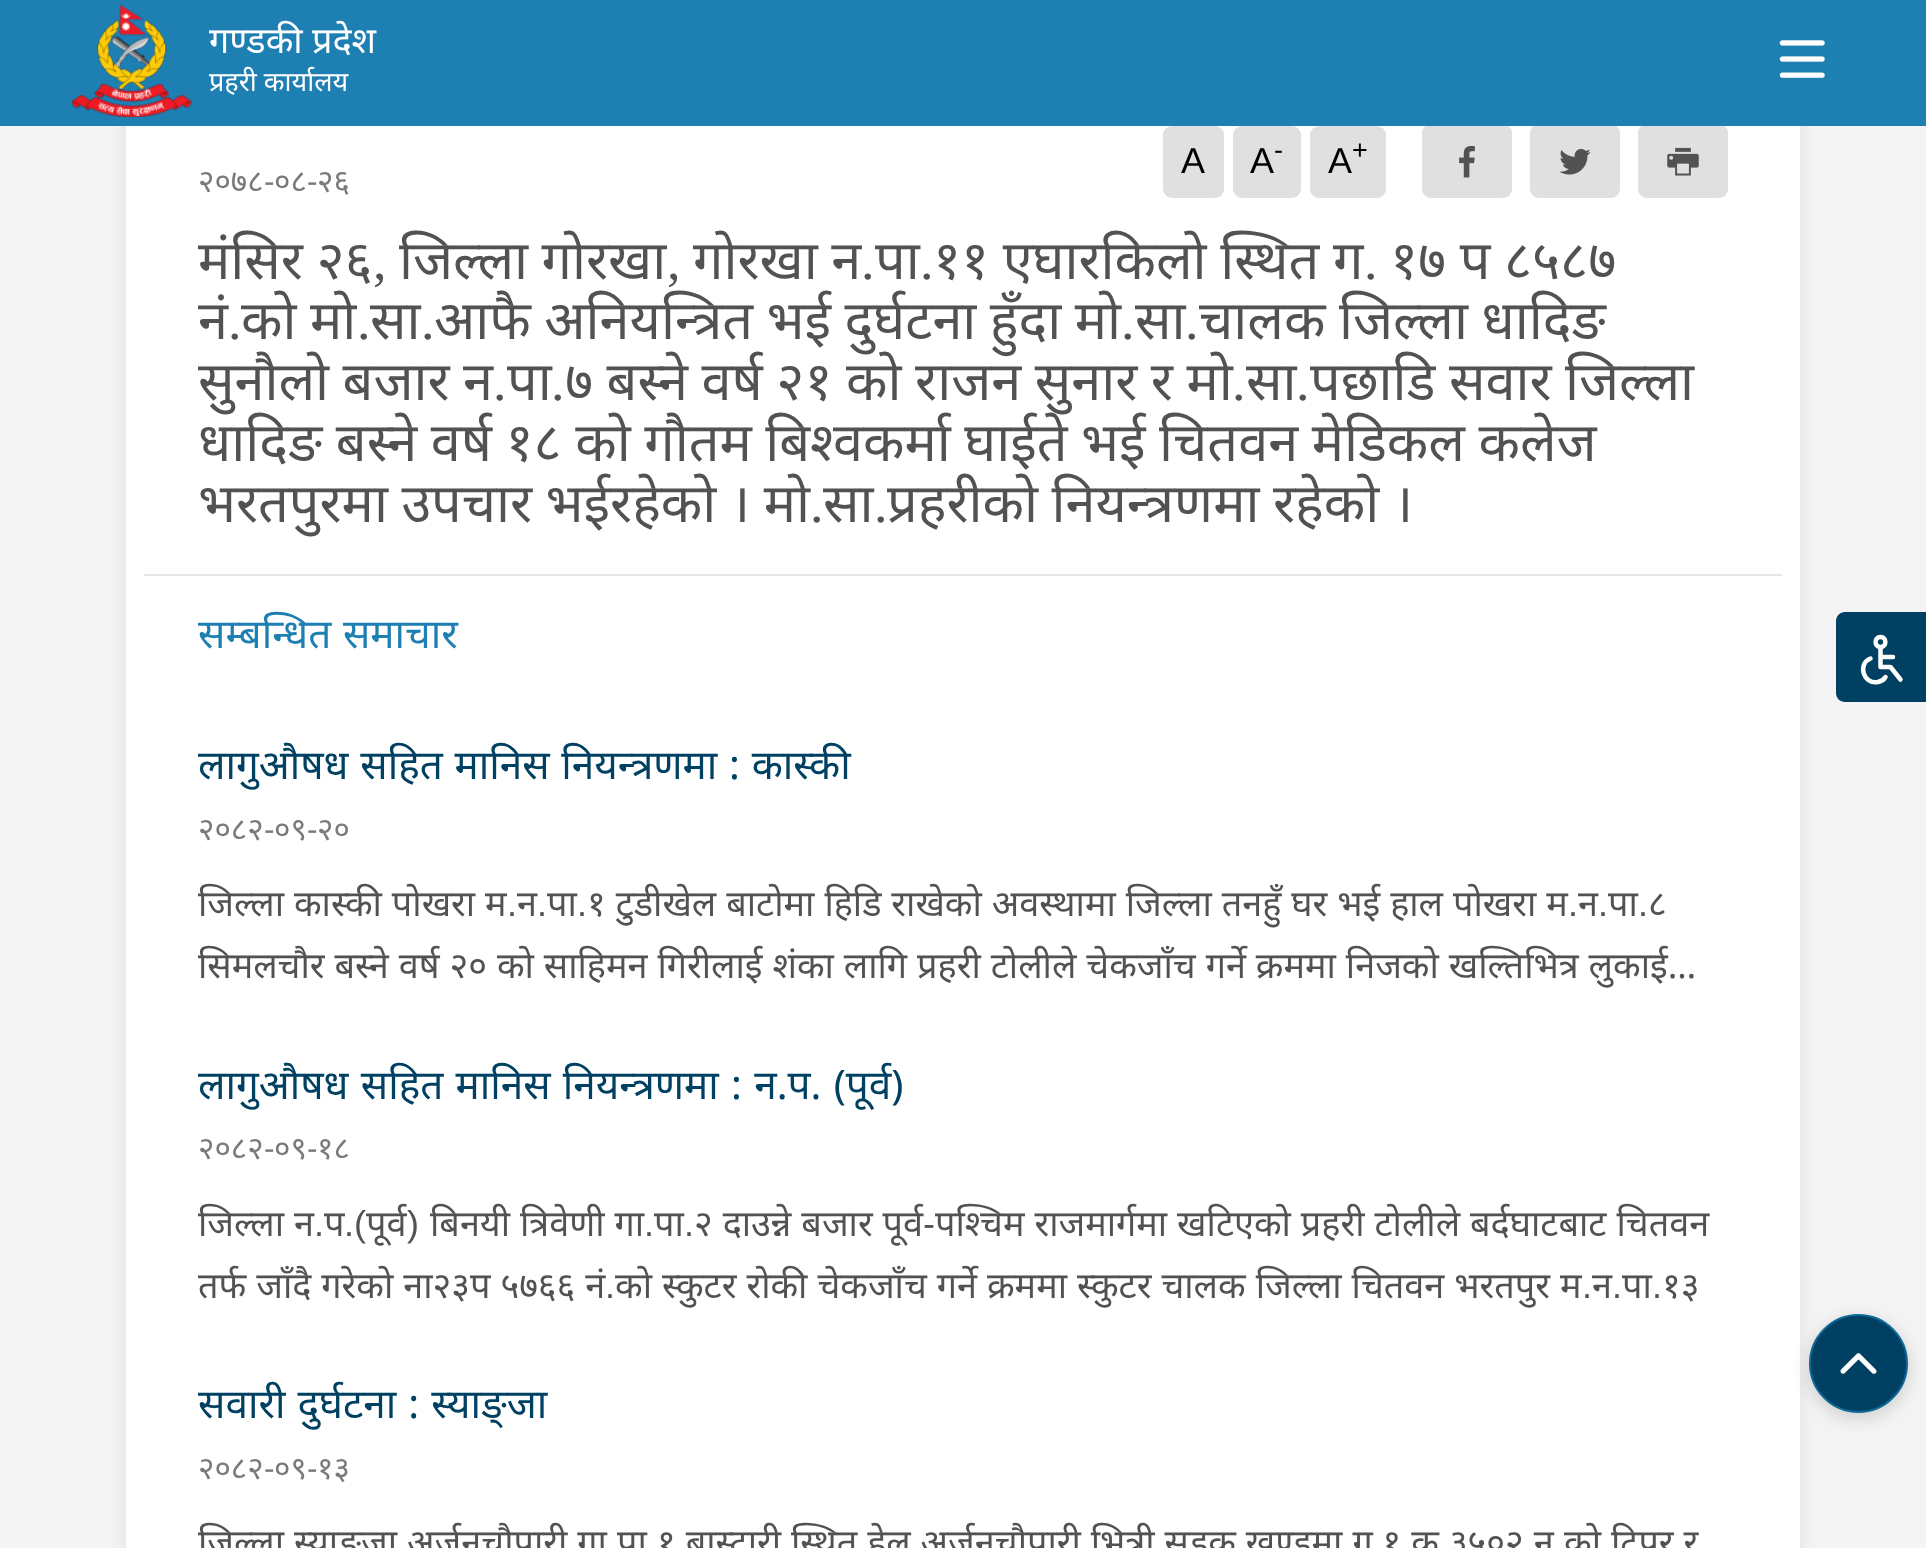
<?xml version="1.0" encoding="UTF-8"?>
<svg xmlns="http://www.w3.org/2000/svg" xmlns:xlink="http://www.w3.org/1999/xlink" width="1926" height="1548">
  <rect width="100%" height="100%" fill="#f4f4f4" />
  <rect x="126" width="1674" height="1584" rx="9" fill="#000000" fill-opacity="0.08" filter="blur(9px)" />
  <rect x="126" y="126" width="1674" height="1422" fill="#ffffff" />
  <rect x="1422" y="124" width="90" height="74" rx="9" fill="#e0e0e0" />
  <rect x="1530" y="124" width="90" height="74" rx="9" fill="#e0e0e0" />
  <rect x="1638" y="124" width="90" height="74" rx="9" fill="#e0e0e0" />
  <rect width="1926" height="126" fill="#1e7fb2" />
  <image x="72" y="4" width="120" height="113" xlink:href="image1.png" />
  <image x="1779" y="40" width="46" height="38" xlink:href="image2.png" />
  <rect x="1163" y="126" width="61" height="72" rx="9" fill="#e0e0e0" />
  <rect x="1233" y="126" width="68" height="72" rx="9" fill="#e0e0e0" />
  <rect x="1310" y="126" width="76" height="72" rx="9" fill="#e0e0e0" />
  <image x="1459" y="146" width="16" height="32" xlink:href="image3.png" />
  <image x="1559" y="148" width="32" height="27" xlink:href="image4.png" />
  <image x="1667" y="147" width="32" height="29" xlink:href="image5.png" />
  <rect x="144" y="574" width="1638" height="2" fill="#e6e6e6" />
  <rect x="1809" y="1319" width="99" height="99" rx="49.5" fill="#000000" fill-opacity="0.16" filter="blur(9px)" />
  <circle cx="1858.5" cy="1363.5" r="48.5" fill="#004163" stroke="#0c6998" stroke-width="2" />
  <image x="1840" y="1353" width="37" height="21" xlink:href="image6.png" />
  <path d="M 1845 612 h 81 v 90 h -81 c -5 0 -9 -4 -9 -9 v -72 c 0 -5 4 -9 9 -9 z" fill="#004163" />
  <path d="M 1880.5 647 c 6.5 0 6.5 -10 0 -10 c -6.5 0 -6.5 10 0 10 z m 0 0 v 20 h 10 l 10 12.5 m -20 -22.5 h 12.5 m -22.5 1.5 c -13.5 5.5 -7 26.5 7.5 23.5 c 3 -0.5 6 -2.5 7.5 -5" fill="none" stroke="#ffffff" stroke-width="4.5" stroke-linecap="round" stroke-linejoin="round" />
  <text x="209" y="53" style="font-family: Noto Sans; font-size: 36px; fill: #ffffff">गण्डकी प्रदेश</text>
  <text x="209" y="91" style="font-family: Noto Sans; font-size: 27px; fill: #ffffff">प्रहरी कार्यालय</text>
  <text x="1181" y="173" style="font-family: Liberation Sans; font-size: 36px; fill: #000000">A</text>
  <text x="1250" y="173" style="font-family: Liberation Sans; font-size: 36px; fill: #000000">A</text>
  <text x="1274" y="159" style="font-family: Liberation Sans; font-size: 27px; fill: #000000">-</text>
  <text x="1328" y="173" style="font-family: Liberation Sans; font-size: 36px; fill: #000000">A</text>
  <text x="1352" y="159" style="font-family: Liberation Sans; font-size: 27px; fill: #000000">+</text>
  <text x="198" y="192" style="font-family: Noto Sans; font-size: 31.5px; fill: #7a7a7a">२०७८</text>
  <text x="264" y="192" style="font-family: Liberation Sans; font-size: 31.5px; fill: #7a7a7a">-</text>
  <text x="274" y="192" style="font-family: Noto Sans; font-size: 31.5px; fill: #7a7a7a">०८</text>
  <text x="307" y="192" style="font-family: Liberation Sans; font-size: 31.5px; fill: #7a7a7a">-</text>
  <text x="317" y="192" style="font-family: Noto Sans; font-size: 31.5px; fill: #7a7a7a">२६</text>
  <text x="198" y="279" word-spacing="-0.5" style="font-family: Noto Sans; font-size: 54px; fill: #525252">मंसिर २६</text>
  <text x="399" y="279" word-spacing="-0.5" style="font-family: Noto Sans; font-size: 54px; fill: #525252">जिल्ला गोरखा</text>
  <text x="693" y="279" word-spacing="-0.5" style="font-family: Noto Sans; font-size: 54px; fill: #525252">गोरखा न</text>
  <text x="875" y="279" style="font-family: Noto Sans; font-size: 54px; fill: #525252">पा</text>
  <text x="933" y="279" word-spacing="-0.5" style="font-family: Noto Sans; font-size: 54px; fill: #525252">११ एघारकिलो स्थित ग</text>
  <text x="1390" y="279" word-spacing="-0.5" style="font-family: Noto Sans; font-size: 54px; fill: #525252">१७ प ८५८७</text>
  <text x="373" y="279" style="font-family: Liberation Serif; font-size: 54px; fill: #525252">,</text>
  <text x="667" y="279" style="font-family: Liberation Serif; font-size: 54px; fill: #525252">,</text>
  <text x="861" y="279" style="font-family: Liberation Serif; font-size: 54px; fill: #525252">.</text>
  <text x="920" y="279" style="font-family: Liberation Serif; font-size: 54px; fill: #525252">.</text>
  <text x="1364" y="279" style="font-family: Liberation Serif; font-size: 54px; fill: #525252">.</text>
  <text x="198" y="339" style="font-family: Noto Sans; font-size: 54px; fill: #525252">नं</text>
  <text x="370" y="339" style="font-family: Noto Sans; font-size: 54px; fill: #525252">सा</text>
  <text x="434" y="339" word-spacing="-0.5" style="font-family: Noto Sans; font-size: 54px; fill: #525252">आफै अनियन्त्रित भई दुर्घटना हुँदा मो</text>
  <text x="1135" y="339" style="font-family: Noto Sans; font-size: 54px; fill: #525252">सा</text>
  <text x="1199" y="339" word-spacing="-0.5" style="font-family: Noto Sans; font-size: 54px; fill: #525252">चालक जिल्ला धादिङ</text>
  <text x="228" y="339" style="font-family: Liberation Serif; font-size: 54px; fill: #525252">.</text>
  <text x="241" y="339" word-spacing="-0.5" style="font-family: Noto Sans; font-size: 54px; fill: #525252">को मो</text>
  <text x="357" y="339" style="font-family: Liberation Serif; font-size: 54px; fill: #525252">.</text>
  <text x="421" y="339" style="font-family: Liberation Serif; font-size: 54px; fill: #525252">.</text>
  <text x="1121" y="339" style="font-family: Liberation Serif; font-size: 54px; fill: #525252">.</text>
  <text x="1185" y="339" style="font-family: Liberation Serif; font-size: 54px; fill: #525252">.</text>
  <text x="198" y="400" word-spacing="-0.5" style="font-family: Noto Sans; font-size: 54px; fill: #525252">सुनौलो बजार न</text>
  <text x="493" y="400" style="font-family: Liberation Serif; font-size: 54px; fill: #525252">.</text>
  <text x="507" y="400" style="font-family: Noto Sans; font-size: 54px; fill: #525252">पा</text>
  <text x="551" y="400" style="font-family: Liberation Serif; font-size: 54px; fill: #525252">.</text>
  <text x="565" y="400" word-spacing="-0.5" style="font-family: Noto Sans; font-size: 54px; fill: #525252">७ बस्ने वर्ष २१ को राजन सुनार र मो</text>
  <text x="1232" y="400" style="font-family: Liberation Serif; font-size: 54px; fill: #525252">.</text>
  <text x="1246" y="400" style="font-family: Noto Sans; font-size: 54px; fill: #525252">सा</text>
  <text x="1296" y="400" style="font-family: Liberation Serif; font-size: 54px; fill: #525252">.</text>
  <text x="1310" y="400" word-spacing="-0.5" style="font-family: Noto Sans; font-size: 54px; fill: #525252">पछाडि सवार जिल्ला</text>
  <text x="198" y="461" word-spacing="-0.5" style="font-family: Noto Sans; font-size: 54px; fill: #525252">धादिङ बस्ने वर्ष १८ को गौतम बिश्वकर्मा घाईते भई चितवन मेडिकल कलेज</text>
  <text x="198" y="522" word-spacing="-0.5" style="font-family: Noto Sans; font-size: 54px; fill: #525252">भरतपुरमा उपचार भईरहेको । मो</text>
  <text x="810" y="522" style="font-family: Liberation Serif; font-size: 54px; fill: #525252">.</text>
  <text x="823" y="522" style="font-family: Noto Sans; font-size: 54px; fill: #525252">सा</text>
  <text x="874" y="522" style="font-family: Liberation Serif; font-size: 54px; fill: #525252">.</text>
  <text x="887" y="522" word-spacing="-0.5" style="font-family: Noto Sans; font-size: 54px; fill: #525252">प्रहरीको नियन्त्रणमा रहेको ।</text>
  <text x="198" y="648" word-spacing="1" style="font-family: Noto Sans; font-size: 40.5px; fill: #1e7fb2">सम्बन्धित समाचार</text>
  <text x="198" y="779" word-spacing="1.25" style="font-family: Noto Sans; font-size: 40.5px; fill: #004163">लागुऔषध सहित मानिस नियन्त्रणमा : कास्की</text>
  <text x="198" y="840" style="font-family: Noto Sans; font-size: 31.5px; fill: #7a7a7a">२०८२</text>
  <text x="264" y="840" style="font-family: Liberation Sans; font-size: 31.5px; fill: #7a7a7a">-</text>
  <text x="274" y="840" style="font-family: Noto Sans; font-size: 31.5px; fill: #7a7a7a">०९</text>
  <text x="307" y="840" style="font-family: Liberation Sans; font-size: 31.5px; fill: #7a7a7a">-</text>
  <text x="317" y="840" style="font-family: Noto Sans; font-size: 31.5px; fill: #7a7a7a">२०</text>
  <text x="198" y="916" word-spacing="0.6" style="font-family: Noto Sans; font-size: 36px; fill: #525252">जिल्ला कास्की पोखरा म</text>
  <text x="507" y="916" style="font-family: Liberation Sans; font-size: 36px; fill: #525252">.</text>
  <text x="517" y="916" style="font-family: Noto Sans; font-size: 36px; fill: #525252">न</text>
  <text x="537" y="916" style="font-family: Liberation Sans; font-size: 36px; fill: #525252">.</text>
  <text x="547" y="916" style="font-family: Noto Sans; font-size: 36px; fill: #525252">पा</text>
  <text x="577" y="916" style="font-family: Liberation Sans; font-size: 36px; fill: #525252">.</text>
  <text x="587" y="916" word-spacing="0.6" style="font-family: Noto Sans; font-size: 36px; fill: #525252">१ टुडीखेल बाटोमा हिडि राखेको अवस्थामा जिल्ला तनहुँ घर भई हाल पोखरा म</text>
  <text x="1568" y="916" style="font-family: Liberation Sans; font-size: 36px; fill: #525252">.</text>
  <text x="1578" y="916" style="font-family: Noto Sans; font-size: 36px; fill: #525252">न</text>
  <text x="1598" y="916" style="font-family: Liberation Sans; font-size: 36px; fill: #525252">.</text>
  <text x="1608" y="916" style="font-family: Noto Sans; font-size: 36px; fill: #525252">पा</text>
  <text x="1638" y="916" style="font-family: Liberation Sans; font-size: 36px; fill: #525252">.</text>
  <text x="1648" y="916" style="font-family: Noto Sans; font-size: 36px; fill: #525252">८</text>
  <text x="198" y="978" word-spacing="0.6" style="font-family: Noto Sans; font-size: 36px; fill: #525252">सिमलचौर बस्ने वर्ष २० को साहिमन गिरीलाई शंका लागि प्रहरी टोलीले चेकजाँच गर्ने क्रममा निजको खल्तिभित्र लुकाई…</text>
  <text x="198" y="1099" word-spacing="1.75" style="font-family: Noto Sans; font-size: 40.5px; fill: #004163">लागुऔषध सहित मानिस नियन्त्रणमा : न.प. (पूर्व)</text>
  <text x="198" y="1159" style="font-family: Noto Sans; font-size: 31.5px; fill: #7a7a7a">२०८२</text>
  <text x="264" y="1159" style="font-family: Liberation Sans; font-size: 31.5px; fill: #7a7a7a">-</text>
  <text x="274" y="1159" style="font-family: Noto Sans; font-size: 31.5px; fill: #7a7a7a">०९</text>
  <text x="307" y="1159" style="font-family: Liberation Sans; font-size: 31.5px; fill: #7a7a7a">-</text>
  <text x="317" y="1159" style="font-family: Noto Sans; font-size: 31.5px; fill: #7a7a7a">१८</text>
  <text x="198" y="1236" word-spacing="0.6" style="font-family: Noto Sans; font-size: 36px; fill: #525252">जिल्ला न</text>
  <text x="430" y="1236" word-spacing="0.6" style="font-family: Noto Sans; font-size: 36px; fill: #525252">बिनयी त्रिवेणी गा</text>
  <text x="694" y="1236" word-spacing="0.6" style="font-family: Noto Sans; font-size: 36px; fill: #525252">२ दाउन्ने बजार पूर्व</text>
  <text x="935" y="1236" word-spacing="0.6" style="font-family: Noto Sans; font-size: 36px; fill: #525252">पश्चिम राजमार्गमा खटिएको प्रहरी टोलीले बर्दघाटबाट चितवन</text>
  <text x="324" y="1236" style="font-family: Noto Sans; font-size: 36px; fill: #525252">प</text>
  <text x="344" y="1236" style="font-family: Liberation Sans; font-size: 36px; fill: #525252">.(</text>
  <text x="366" y="1236" style="font-family: Noto Sans; font-size: 36px; fill: #525252">पूर्व</text>
  <text x="407" y="1236" style="font-family: Liberation Sans; font-size: 36px; fill: #525252">)</text>
  <text x="654" y="1236" style="font-family: Noto Sans; font-size: 36px; fill: #525252">पा</text>
  <text x="923" y="1236" style="font-family: Liberation Sans; font-size: 36px; fill: #525252">-</text>
  <text x="314" y="1236" style="font-family: Liberation Sans; font-size: 36px; fill: #525252">.</text>
  <text x="644" y="1236" style="font-family: Liberation Sans; font-size: 36px; fill: #525252">.</text>
  <text x="684" y="1236" style="font-family: Liberation Sans; font-size: 36px; fill: #525252">.</text>
  <text x="198" y="1298" word-spacing="0.6" style="font-family: Noto Sans; font-size: 36px; fill: #525252">तर्फ जाँदै गरेको ना२३प ५७६६ नं</text>
  <text x="1592" y="1298" style="font-family: Noto Sans; font-size: 36px; fill: #525252">न</text>
  <text x="1622" y="1298" style="font-family: Noto Sans; font-size: 36px; fill: #525252">पा</text>
  <text x="1662" y="1298" style="font-family: Noto Sans; font-size: 36px; fill: #525252">१३</text>
  <text x="605" y="1298" style="font-family: Liberation Sans; font-size: 36px; fill: #525252">.</text>
  <text x="615" y="1298" word-spacing="0.6" style="font-family: Noto Sans; font-size: 36px; fill: #525252">को स्कुटर रोकी चेकजाँच गर्ने क्रममा स्कुटर चालक जिल्ला चितवन भरतपुर म</text>
  <text x="1582" y="1298" style="font-family: Liberation Sans; font-size: 36px; fill: #525252">.</text>
  <text x="1612" y="1298" style="font-family: Liberation Sans; font-size: 36px; fill: #525252">.</text>
  <text x="1652" y="1298" style="font-family: Liberation Sans; font-size: 36px; fill: #525252">.</text>
  <text x="198" y="1418" word-spacing="1.5" style="font-family: Noto Sans; font-size: 40.5px; fill: #004163">सवारी दुर्घटना : स्याङ्जा</text>
  <text x="198" y="1479" style="font-family: Noto Sans; font-size: 31.5px; fill: #7a7a7a">२०८२</text>
  <text x="264" y="1479" style="font-family: Liberation Sans; font-size: 31.5px; fill: #7a7a7a">-</text>
  <text x="274" y="1479" style="font-family: Noto Sans; font-size: 31.5px; fill: #7a7a7a">०९</text>
  <text x="307" y="1479" style="font-family: Liberation Sans; font-size: 31.5px; fill: #7a7a7a">-</text>
  <text x="317" y="1479" style="font-family: Noto Sans; font-size: 31.5px; fill: #7a7a7a">१३</text>
  <text x="198" y="1555" word-spacing="0.6" style="font-family: Noto Sans; font-size: 36px; fill: #525252">जिल्ला स्याङ्जा अर्जुनचौपारी गा</text>
  <text x="617" y="1555" style="font-family: Noto Sans; font-size: 36px; fill: #525252">पा</text>
  <text x="657" y="1555" word-spacing="0.6" style="font-family: Noto Sans; font-size: 36px; fill: #525252">१ बास्टारी स्थित हेलु अर्जुनचौपारी भित्री सडक खण्डमा ग १ क ३५०२ न</text>
  <text x="1564" y="1555" word-spacing="0.6" style="font-family: Noto Sans; font-size: 36px; fill: #525252">को टिपर र</text>
</svg>
